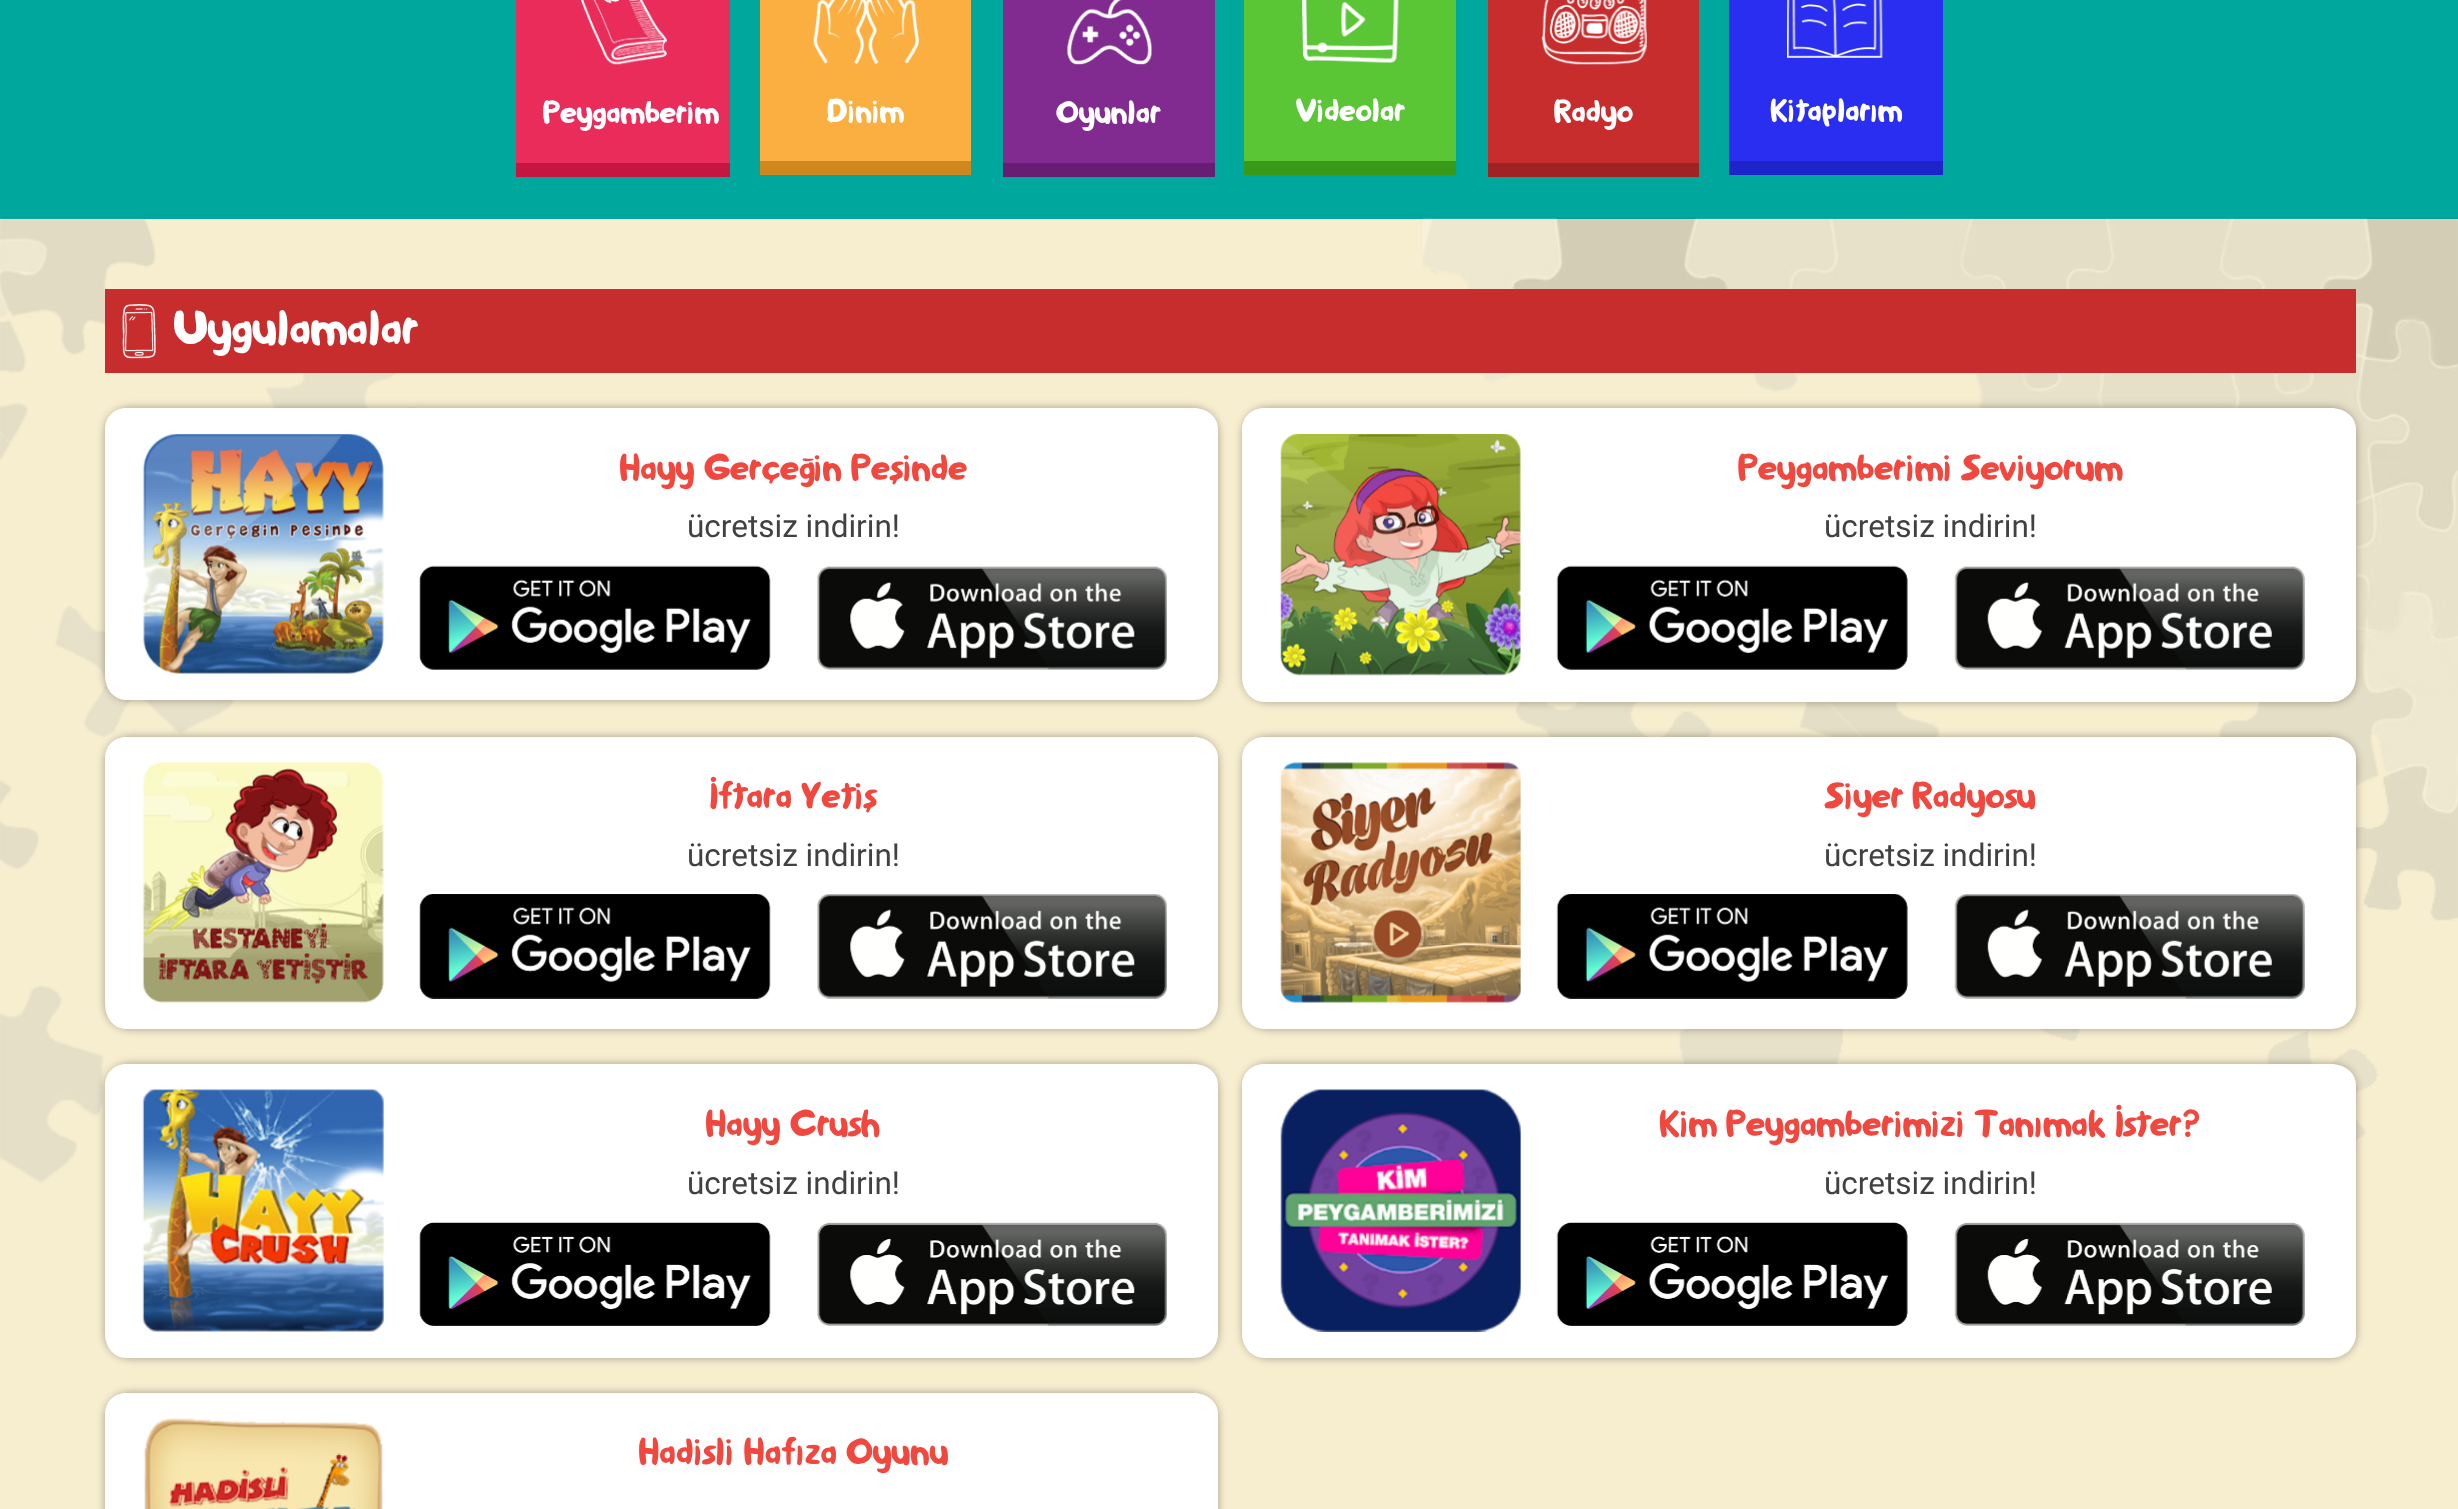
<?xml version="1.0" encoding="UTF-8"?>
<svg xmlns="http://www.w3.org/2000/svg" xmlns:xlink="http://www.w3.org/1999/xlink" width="2458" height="1509">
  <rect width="100%" height="100%" fill="#00a79d" />
  <rect x="516" width="214" height="163" fill="#ea2c5a" />
  <rect x="516" y="163" width="214" height="14" fill="#c41640" />
  <image x="580" y="0" width="87" height="65" xlink:href="image1.png" />
  <rect x="760" width="211" height="161" fill="#faaf40" />
  <rect x="760" y="161" width="211" height="14" fill="#cf8820" />
  <image x="813" y="0" width="106" height="65" xlink:href="image2.png" />
  <rect x="1003" width="212" height="163" fill="#812b90" />
  <rect x="1003" y="163" width="212" height="14" fill="#681d75" />
  <image x="1067" y="0" width="85" height="65" xlink:href="image3.png" />
  <rect x="1244" width="212" height="161" fill="#5ac535" />
  <rect x="1244" y="161" width="212" height="14" fill="#399918" />
  <image x="1302" y="0" width="97" height="63" xlink:href="image4.png" />
  <rect x="1488" width="211" height="163" fill="#c82d2d" />
  <rect x="1488" y="163" width="211" height="14" fill="#a02323" />
  <image x="1541" y="0" width="106" height="65" xlink:href="image5.png" />
  <rect x="1729" width="214" height="161" fill="#2a2ef1" />
  <rect x="1729" y="161" width="214" height="14" fill="#1f23ca" />
  <image x="1787" y="0" width="96" height="58" xlink:href="image6.png" />
  <rect y="219" width="2458" height="1290" fill="#f7eed0" />
  <image x="0" y="218" width="2458" height="965" xlink:href="image7.png" />
  <rect x="105" y="289" width="2251" height="84" fill="#c82d2d" />
  <image x="122" y="304" width="34" height="55" xlink:href="image8.png" />
  <rect x="105" y="408" width="1113" height="292" rx="25" fill="#000000" fill-opacity="0.35" filter="blur(4.5px)" />
  <path d="M 126 408 h 1068 c 13 0 24 9 24 21 v 247 c 0 13 -11 24 -24 24 h -1068 c -12 0 -21 -11 -21 -24 v -247 c 0 -12 9 -21 21 -21 z" fill="#ffffff" />
  <image x="142" y="434" width="242" height="240" xlink:href="image9.png" />
  <image x="419" y="565" width="352" height="105" xlink:href="image10.png" />
  <image x="817" y="566" width="350" height="104" xlink:href="image11.png" />
  <rect x="1243" y="408" width="1113" height="294" rx="25" fill="#000000" fill-opacity="0.35" filter="blur(4.5px)" />
  <path d="M 1264 408 h 1067 c 14 0 25 9 25 21 v 248 c 0 14 -11 25 -25 25 h -1067 c -12 0 -22 -11 -22 -25 v -248 c 0 -12 10 -21 22 -21 z" fill="#ffffff" />
  <image x="1280" y="434" width="241" height="242" xlink:href="image12.png" />
  <image x="1556" y="565" width="352" height="105" xlink:href="image13.png" />
  <image x="1954" y="566" width="351" height="104" xlink:href="image14.png" />
  <rect x="105" y="737" width="1113" height="292" rx="25" fill="#000000" fill-opacity="0.35" filter="blur(4.5px)" />
  <path d="M 126 737 h 1068 c 13 0 24 9 24 21 v 246 c 0 14 -11 25 -24 25 h -1068 c -12 0 -21 -11 -21 -25 v -246 c 0 -12 9 -21 21 -21 z" fill="#ffffff" />
  <image x="142" y="762" width="242" height="241" xlink:href="image15.png" />
  <image x="419" y="894" width="352" height="105" xlink:href="image16.png" />
  <image x="817" y="894" width="350" height="105" xlink:href="image17.png" />
  <rect x="1243" y="737" width="1113" height="292" rx="25" fill="#000000" fill-opacity="0.35" filter="blur(4.5px)" />
  <path d="M 1264 737 h 1067 c 14 0 25 9 25 21 v 246 c 0 14 -11 25 -25 25 h -1067 c -12 0 -22 -11 -22 -25 v -246 c 0 -12 10 -21 22 -21 z" fill="#ffffff" />
  <image x="1280" y="762" width="241" height="241" xlink:href="image18.png" />
  <image x="1556" y="894" width="352" height="105" xlink:href="image19.png" />
  <image x="1954" y="894" width="351" height="105" xlink:href="image20.png" />
  <rect x="105" y="1064" width="1113" height="294" rx="25" fill="#000000" fill-opacity="0.35" filter="blur(4.5px)" />
  <path d="M 126 1064 h 1068 c 13 0 24 9 24 21 v 249 c 0 13 -11 24 -24 24 h -1068 c -12 0 -21 -11 -21 -24 v -249 c 0 -12 9 -21 21 -21 z" fill="#ffffff" />
  <image x="142" y="1089" width="242" height="243" xlink:href="image21.png" />
  <image x="419" y="1222" width="352" height="104" xlink:href="image22.png" />
  <image x="817" y="1222" width="350" height="104" xlink:href="image23.png" />
  <rect x="1243" y="1064" width="1113" height="294" rx="25" fill="#000000" fill-opacity="0.35" filter="blur(4.5px)" />
  <path d="M 1264 1064 h 1067 c 14 0 25 9 25 21 v 249 c 0 13 -11 24 -25 24 h -1067 c -12 0 -22 -11 -22 -24 v -249 c 0 -12 10 -21 22 -21 z" fill="#ffffff" />
  <image x="1280" y="1089" width="241" height="243" xlink:href="image24.png" />
  <image x="1556" y="1222" width="352" height="104" xlink:href="image25.png" />
  <image x="1954" y="1222" width="351" height="104" xlink:href="image26.png" />
  <rect x="105" y="1393" width="1113" height="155" rx="25" fill="#000000" fill-opacity="0.35" filter="blur(4.5px)" />
  <path d="M 126 1393 h 1068 c 13 0 24 9 24 21 v 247 c 0 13 -11 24 -24 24 h -1068 c -12 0 -21 -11 -21 -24 v -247 c 0 -12 9 -21 21 -21 z" fill="#ffffff" />
  <image x="144" y="1418" width="239" height="91" xlink:href="image27.png" />
  <text x="543" y="123" style="font-family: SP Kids; font-size: 31.5px; fill: #ffffff">Peygamberim</text>
  <text x="827" y="122" style="font-family: SP Kids; font-size: 31.5px; fill: #ffffff">Dinim</text>
  <text x="1056" y="123" style="font-family: SP Kids; font-size: 31.5px; fill: #ffffff">Oyunlar</text>
  <text x="1296" y="121" style="font-family: SP Kids; font-size: 31.5px; fill: #ffffff">Videolar</text>
  <text x="1554" y="122" style="font-family: SP Kids; font-size: 31.5px; fill: #ffffff">Radyo</text>
  <text x="1770" y="121" style="font-family: SP Kids; font-size: 31.5px; fill: #ffffff">Kitaplarım</text>
  <text x="174" y="344" style="font-family: SP Kids; font-size: 47.25px; fill: #ffffff">Uygulamalar</text>
  <text x="619" y="480" style="font-family: SP Kids; font-size: 36.75px; fill: #f0473f">Hayy Gerçeğin Peşinde</text>
  <text x="687" y="537" style="font-family: Roboto; font-size: 31.5px; fill: #414141">ücretsiz indirin!</text>
  <text x="1738" y="480" style="font-family: SP Kids; font-size: 36.75px; fill: #f0473f">Peygamberimi Seviyorum</text>
  <text x="1824" y="537" style="font-family: Roboto; font-size: 31.5px; fill: #414141">ücretsiz indirin!</text>
  <text x="710" y="808" style="font-family: SP Kids; font-size: 36.75px; fill: #f0473f">İftara Yetiş</text>
  <text x="687" y="866" style="font-family: Roboto; font-size: 31.5px; fill: #414141">ücretsiz indirin!</text>
  <text x="1825" y="808" style="font-family: SP Kids; font-size: 36.75px; fill: #f0473f">Siyer Radyosu</text>
  <text x="1824" y="866" style="font-family: Roboto; font-size: 31.5px; fill: #414141">ücretsiz indirin!</text>
  <text x="705" y="1136" style="font-family: SP Kids; font-size: 36.75px; fill: #f0473f">Hayy Crush</text>
  <text x="687" y="1194" style="font-family: Roboto; font-size: 31.5px; fill: #414141">ücretsiz indirin!</text>
  <text x="1659" y="1136" style="font-family: SP Kids; font-size: 36.75px; fill: #f0473f">Kim Peygamberimizi Tanımak İster?</text>
  <text x="1824" y="1194" style="font-family: Roboto; font-size: 31.5px; fill: #414141">ücretsiz indirin!</text>
  <text x="638" y="1464" style="font-family: SP Kids; font-size: 36.75px; fill: #f0473f">Hadisli Hafıza Oyunu</text>
</svg>
